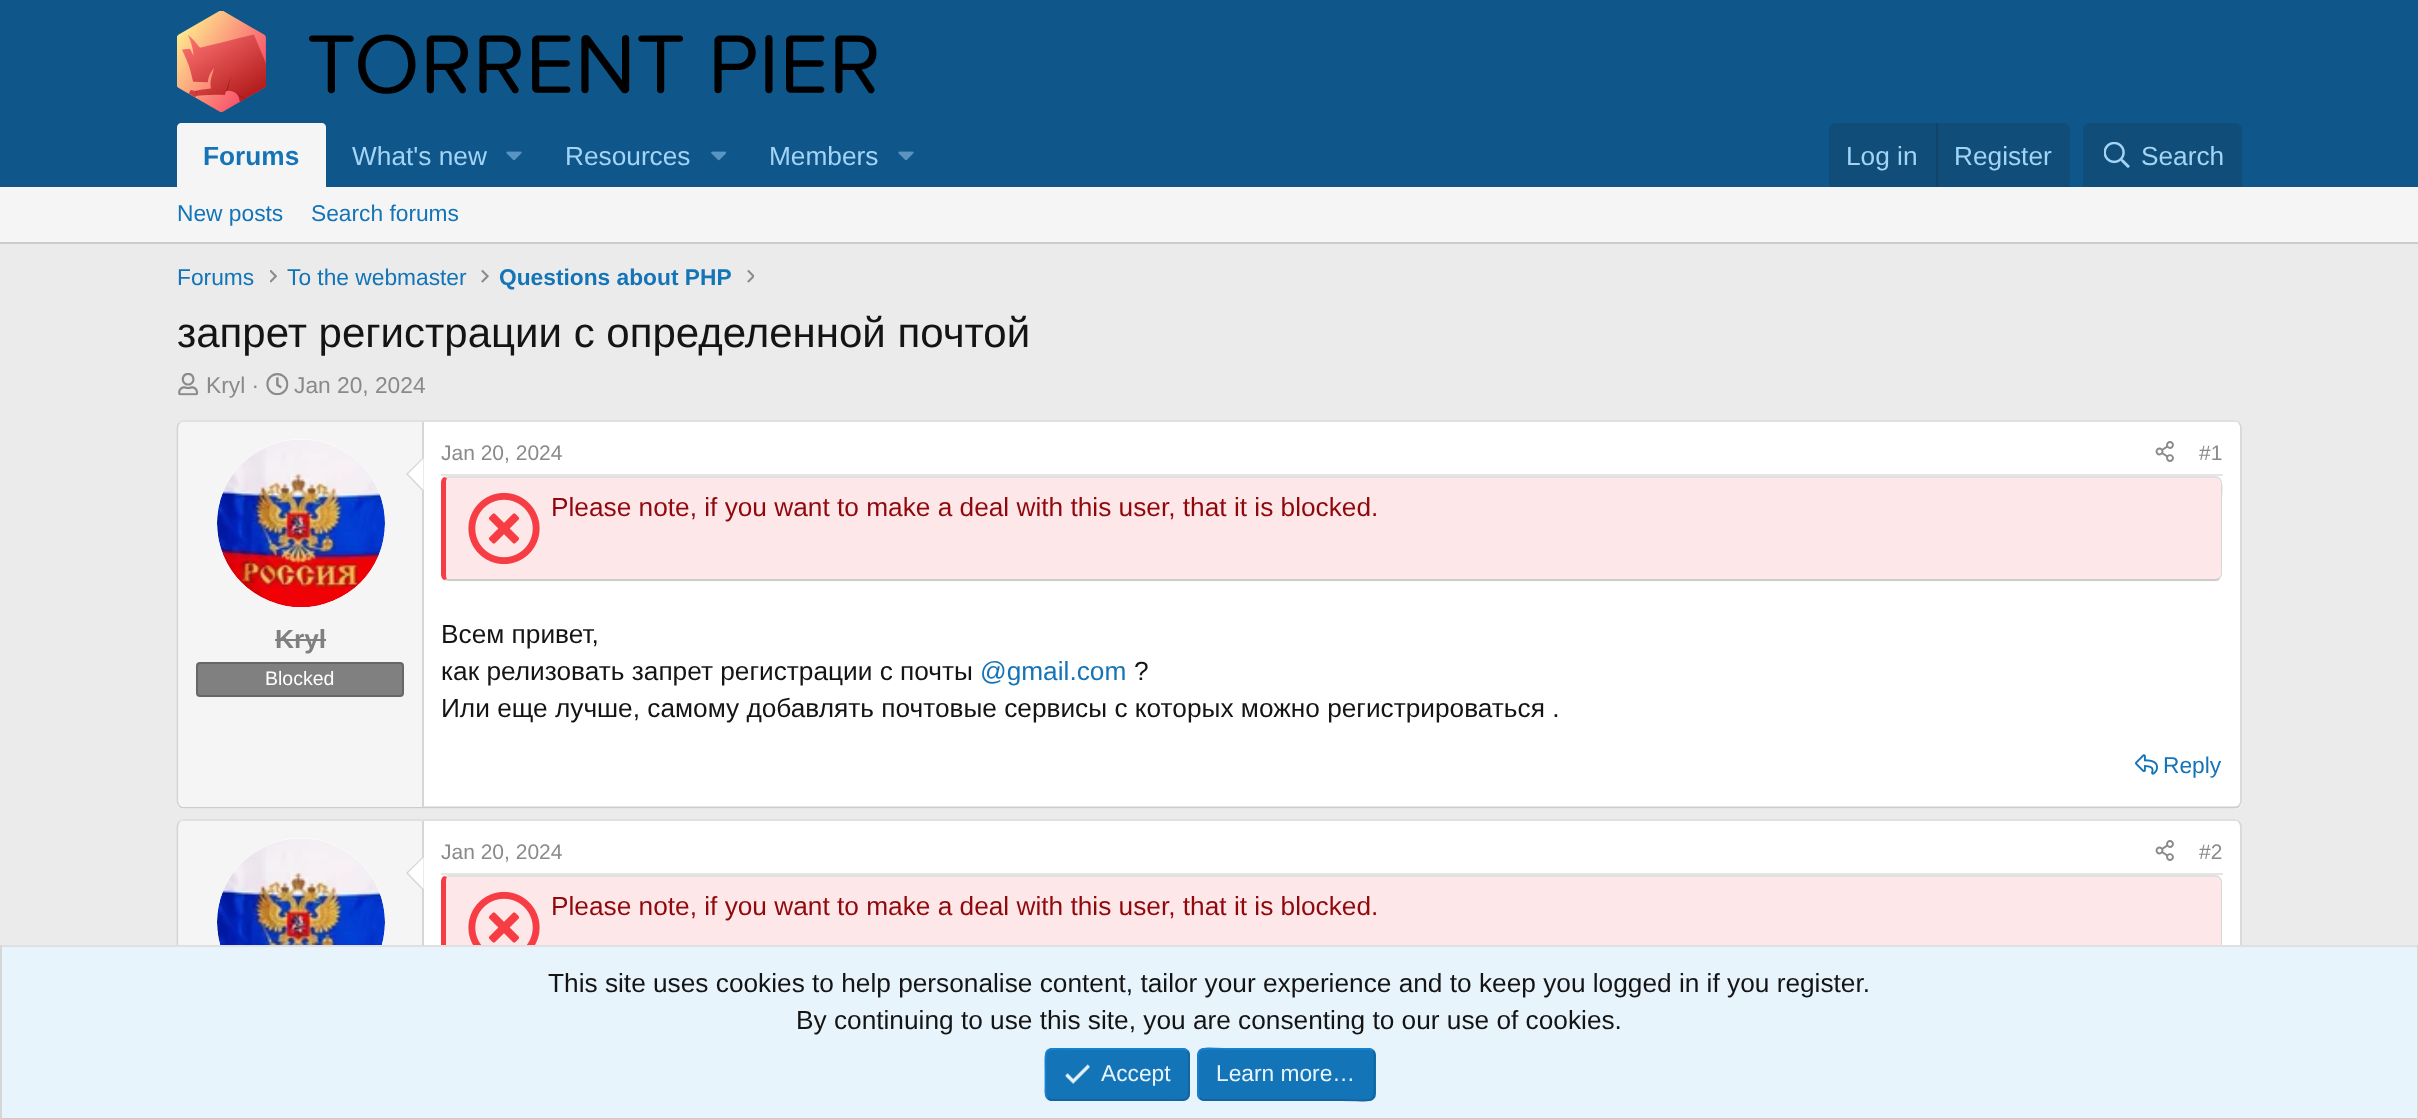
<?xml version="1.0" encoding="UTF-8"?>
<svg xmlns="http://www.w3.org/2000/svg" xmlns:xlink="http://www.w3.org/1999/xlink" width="2418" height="1119">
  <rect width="100%" height="100%" fill="#ebebeb" />
  <rect width="2418" height="187" fill="#0f578a" />
  <image x="177" y="11" width="700" height="101" xlink:href="image1.png" />
  <path d="M 181 123 h 141 c 2 0 4 2 4 4 v 60 h -149 v -60 c 0 -2 2 -4 4 -4 z" fill="#f5f5f5" />
  <image x="506" y="151" width="16" height="10" xlink:href="image2.png" />
  <image x="711" y="151" width="15" height="10" xlink:href="image3.png" />
  <image x="898" y="151" width="16" height="10" xlink:href="image2.png" />
  <path d="M 1836 123 h 227 c 4 0 7 3 7 7 v 57 h -241 v -57 c 0 -4 3 -7 7 -7 z" fill="#104d78" />
  <rect x="1936" y="123" width="2" height="64" fill="#114469" />
  <path d="M 2090 123 h 145 c 4 0 7 3 7 7 v 57 h -159 v -57 c 0 -4 3 -7 7 -7 z" fill="#104d78" />
  <image x="2104" y="142" width="26" height="26" xlink:href="image4.png" />
  <rect y="187" width="2418" height="55" fill="#f5f5f5" />
  <rect y="242" width="2418" height="2" fill="#cccccc" />
  <image x="270" y="270" width="7" height="13" xlink:href="image5.png" />
  <image x="481" y="269" width="8" height="14" xlink:href="image6.png" />
  <image x="747" y="269" width="7" height="14" xlink:href="image7.png" />
  <image x="178" y="373" width="21" height="23" xlink:href="image8.png" />
  <image x="266" y="373" width="23" height="23" xlink:href="image9.png" />
  <rect x="177" y="420" width="2065" height="389" rx="7" fill="#ffffff" />
  <path d="M 179.5 422.5 c 1 -1 2.5 -1.5 4.5 -1.5 h 2051 c 1.5 0 3 0.5 4 1.5" fill="none" stroke="#e0e0e0" stroke-width="1.8" />
  <path d="M 2239 422.5 c 1 1.5 2 3 2 4.5 v 374.5 c 0 1.5 -1 3 -2 4.5" fill="none" stroke="#d6d6d6" stroke-width="1.8" />
  <path d="M 2239 806 c -1 1 -2.5 1.5 -4 1.5 h -2051 c -2 0 -3.5 -0.5 -4.5 -1.5" fill="none" stroke="#cccccc" stroke-width="1.8" />
  <path d="M 179.5 806 c -1 -1.5 -2 -3 -2 -4.5 v -374.5 c 0 -1.5 1 -3 2 -4.5" fill="none" stroke="#d6d6d6" stroke-width="1.8" />
  <path d="M 184 422 h 240 v 385 h -240 c -3 0 -5 -2 -5 -5 v -375 c 0 -3 2 -5 5 -5 z" fill="#f5f5f5" />
  <rect x="422" y="422" width="2" height="385" fill="#d6d6d6" />
  <circle cx="301" cy="523" r="84" fill="#ffffff" />
  <image x="217" y="439" width="168" height="168" xlink:href="image10.png" />
  <path d="M 423.5 457 v 35 l -17.5 -18 z" fill="#d6d6d6" />
  <path d="M 423.5 458.5 v 31.5 l -15.5 -16 z" fill="#ffffff" />
  <rect x="275" y="639" width="51" height="2" fill="#808080" />
  <rect x="197" y="663" width="206" height="33" rx="3" fill="#808080" stroke="#676767" stroke-width="2" />
  <rect x="441" y="474" width="1782" height="2" fill="#e5e5e5" />
  <image x="2155" y="441" width="19" height="21" xlink:href="image11.png" />
  <path d="M 448 478 h 1768 c 2 0 5 2 5 5 v 91 c 0 3 -3 5 -5 5 h -1768 c -1 0 -2 -2 -2 -5 v -91 c 0 -3 1 -5 2 -5 z" fill="#fee7e8" />
  <path d="M 448 476 l -4 1 l 3 1 h 1769 l 3 1 l 1 -1 c -1 -1 -2 -2 -4 -2 z" fill="#e0e0e0" />
  <path d="M 2220 478 c 4 5 2 18 2 20 v 77 l -2 4 l -1 -1 l 2 -3 v -93 l -2 -3 z" fill="#d6d6d6" />
  <path d="M 448 581 h 1768 c 2 0 3 -1 4 -2 l -1 -1 l -3 1 h -1769 l -3 1 z" fill="#cccccc" />
  <path d="M 441 483 v 91 c 0 3 1 5 3 6 l 3 -1 c -1 -1 -1 -4 -1 -5 v -93 l 1 -3 l -3 -1 c -2 1 -3 3 -3 6 z" fill="#f53d43" />
  <image x="468" y="492" width="72" height="73" xlink:href="image12.png" />
  <image x="2135" y="754" width="23" height="21" xlink:href="image13.png" />
  <rect x="177" y="819" width="2065" height="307" rx="7" fill="#ffffff" />
  <path d="M 179.5 821.5 c 1 -1 2.5 -1.5 4.5 -1.5 h 2051 c 1.5 0 3 0.5 4 1.5" fill="none" stroke="#e0e0e0" stroke-width="1.8" />
  <path d="M 2239 821.5 c 1 1.5 2 3 2 4.5 v 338 c 0 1.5 -1 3 -2 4" fill="none" stroke="#d6d6d6" stroke-width="1.8" />
  <path d="M 179.5 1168 c -1 -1 -2 -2.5 -2 -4 v -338 c 0 -1.5 1 -3 2 -4.5" fill="none" stroke="#d6d6d6" stroke-width="1.8" />
  <path d="M 184 821 h 240 v 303 h -240 c -3 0 -5 -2 -5 -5 v -293 c 0 -3 2 -5 5 -5 z" fill="#f5f5f5" />
  <rect x="422" y="821" width="2" height="124" fill="#d6d6d6" />
  <circle cx="301" cy="922" r="84" fill="#ffffff" />
  <image x="217" y="838" width="168" height="107" xlink:href="image14.png" />
  <path d="M 423.5 856 v 35 l -17.5 -18 z" fill="#d6d6d6" />
  <path d="M 423.5 857.5 v 31.5 l -15.5 -16 z" fill="#ffffff" />
  <rect x="441" y="873" width="1782" height="2" fill="#e5e5e5" />
  <image x="2155" y="840" width="19" height="21" xlink:href="image11.png" />
  <path d="M 448 877 h 1768 c 2 0 5 2 5 5 v 91 c 0 3 -3 5 -5 5 h -1768 c -1 0 -2 -2 -2 -5 v -91 c 0 -3 1 -5 2 -5 z" fill="#fee7e8" />
  <path d="M 448 875 l -4 1 l 3 1 h 1769 l 3 1 l 1 -1 c -1 -1 -2 -2 -4 -2 z" fill="#e0e0e0" />
  <path d="M 2220 877 l 2 4 v 77 c 0 2 2 15 -2 20 l -1 -1 l 2 -3 v -93 l -2 -3 z" fill="#d6d6d6" />
  <path d="M 441 882 v 91 c 0 3 1 5 3 6 l 3 -1 l -1 -3 v -93 c 0 -1 0 -4 1 -5 l -3 -1 c -2 1 -3 3 -3 6 z" fill="#f53d43" />
  <image x="468" y="891" width="72" height="54" xlink:href="image15.png" />
  <rect x="2" y="947" width="2415" height="171" fill="#e8f4fc" />
  <rect y="945" width="2418" height="2" fill="#e0e0e0" />
  <rect x="2417" y="945" width="1" height="174" fill="#d6d6d6" />
  <rect y="1118" width="2418" height="1" fill="#cccccc" />
  <rect y="945" width="2" height="174" fill="#d6d6d6" />
  <rect x="1045" y="1048" width="145" height="53" rx="7" fill="#1474b8" />
  <path d="M 1187.5 1051 c 2.5 2.5 1.5 7.5 1.5 10.5 v 13 c 0 30 4 25.5 -28 25.5 h -109 c -2 0 -3.5 -1 -4.5 -2" fill="none" stroke="#1265a1" stroke-width="1.8" />
  <path d="M 1047.5 1098 c -3 -2.5 -2 -7.5 -2 -10.5 v -13 c 0 -30 -3.5 -25.5 28 -25.5 h 109.5 c 1.5 0 3 1 4.5 2" fill="none" stroke="#1782cf" stroke-width="1.8" />
  <image x="1065" y="1064" width="25" height="20" xlink:href="image16.png" />
  <rect x="1197" y="1048" width="179" height="53" rx="7" fill="#1474b8" />
  <path d="M 1373 1051 c 2.5 2.5 1.5 7.5 1.5 10.5 v 13 c 0 32 3.5 25.5 -33.5 25.5 h -137 c -1.5 0 -3 -1 -4.5 -2" fill="none" stroke="#1265a1" stroke-width="1.8" />
  <path d="M 1199.5 1098 c -2.5 -2.5 -1.5 -7.5 -1.5 -10.5 v -13 c 0 -32 -3.5 -25.5 33.5 -25.5 h 137 c 1.5 0 3 1 4.5 2" fill="none" stroke="#1782cf" stroke-width="1.8" />
  <text x="203" y="165" style="font-family: Liberation Sans; font-size: 26.25px; font-weight: bold; fill: #1474b8">Forums</text>
  <text x="352" y="165" style="font-family: Liberation Sans; font-size: 26.25px; fill: #a3d4f5">What's new</text>
  <text x="565" y="165" style="font-family: Liberation Sans; font-size: 26.25px; fill: #a3d4f5">Resources</text>
  <text x="769" y="165" style="font-family: Liberation Sans; font-size: 26.25px; fill: #a3d4f5">Members</text>
  <text x="1846" y="165" style="font-family: Liberation Sans; font-size: 26.25px; fill: #a3d4f5">Log in</text>
  <text x="1954" y="165" style="font-family: Liberation Sans; font-size: 26.25px; fill: #a3d4f5">Register</text>
  <text x="2141" y="165" style="font-family: Liberation Sans; font-size: 26.25px; fill: #a3d4f5">Search</text>
  <text x="177" y="221" style="font-family: Liberation Sans; font-size: 22.75px; fill: #1474b8">New posts</text>
  <text x="311" y="221" style="font-family: Liberation Sans; font-size: 22.75px; fill: #1474b8">Search forums</text>
  <text x="177" y="285" style="font-family: Liberation Sans; font-size: 22.75px; fill: #1474b8">Forums</text>
  <text x="287" y="285" style="font-family: Liberation Sans; font-size: 22.75px; fill: #1474b8">To the webmaster</text>
  <text x="499" y="285" style="font-family: Liberation Sans; font-size: 22.75px; font-weight: bold; fill: #1474b8">Questions about PHP</text>
  <text x="177" y="347" style="font-family: Liberation Sans; font-size: 42px; fill: #141414">запрет регистрации с определенной почтой</text>
  <text x="206" y="393" style="font-family: Liberation Sans; font-size: 22.75px; fill: #8a8a8a">Kryl ·</text>
  <text x="294" y="393" style="font-family: Liberation Sans; font-size: 22.75px; fill: #8a8a8a">Jan 20, 2024</text>
  <text x="275" y="648" style="font-family: Liberation Sans; font-size: 26.25px; font-weight: bold; fill: #808080">Kryl</text>
  <text x="265" y="685" style="font-family: Liberation Sans; font-size: 19.5px; fill: #ffffff">Blocked</text>
  <text x="441" y="460" style="font-family: Liberation Sans; font-size: 21px; fill: #8a8a8a">Jan 20, 2024</text>
  <text x="2199" y="460" style="font-family: Liberation Sans; font-size: 21px; fill: #8a8a8a">#1</text>
  <text x="551" y="516" style="font-family: Liberation Sans; font-size: 26.25px; fill: #91080c">Please note, if you want to make a deal with this user, that it is blocked.</text>
  <text x="441" y="643" style="font-family: Liberation Sans; font-size: 26.25px; fill: #141414">Всем привет,</text>
  <text x="441" y="680" style="font-family: Liberation Sans; font-size: 26.25px; fill: #141414">как релизовать запрет регистрации с почты</text>
  <text x="980" y="680" style="font-family: Liberation Sans; font-size: 26.25px; fill: #1474b8">@gmail.com</text>
  <text x="1134" y="680" style="font-family: Liberation Sans; font-size: 26.25px; fill: #141414">?</text>
  <text x="441" y="717" style="font-family: Liberation Sans; font-size: 26.25px; fill: #141414">Или еще лучше, самому добавлять почтовые сервисы с которых можно регистрироваться .</text>
  <text x="2163" y="773" style="font-family: Liberation Sans; font-size: 22.75px; fill: #1474b8">Reply</text>
  <text x="441" y="859" style="font-family: Liberation Sans; font-size: 21px; fill: #8a8a8a">Jan 20, 2024</text>
  <text x="2199" y="859" style="font-family: Liberation Sans; font-size: 21px; fill: #8a8a8a">#2</text>
  <text x="551" y="915" style="font-family: Liberation Sans; font-size: 26.25px; fill: #91080c">Please note, if you want to make a deal with this user, that it is blocked.</text>
  <text x="548" y="992" style="font-family: Liberation Sans; font-size: 26.25px; fill: #141414">This site uses cookies to help personalise content, tailor your experience and to keep you logged in if you register.</text>
  <text x="796" y="1029" style="font-family: Liberation Sans; font-size: 26.25px; fill: #141414">By continuing to use this site, you are consenting to our use of cookies.</text>
  <text x="1101" y="1081" style="font-family: Liberation Sans; font-size: 22.75px; fill: #e8f4fc">Accept</text>
  <text x="1216" y="1081" style="font-family: Liberation Sans; font-size: 22.75px; fill: #e8f4fc">Learn more…</text>
</svg>
